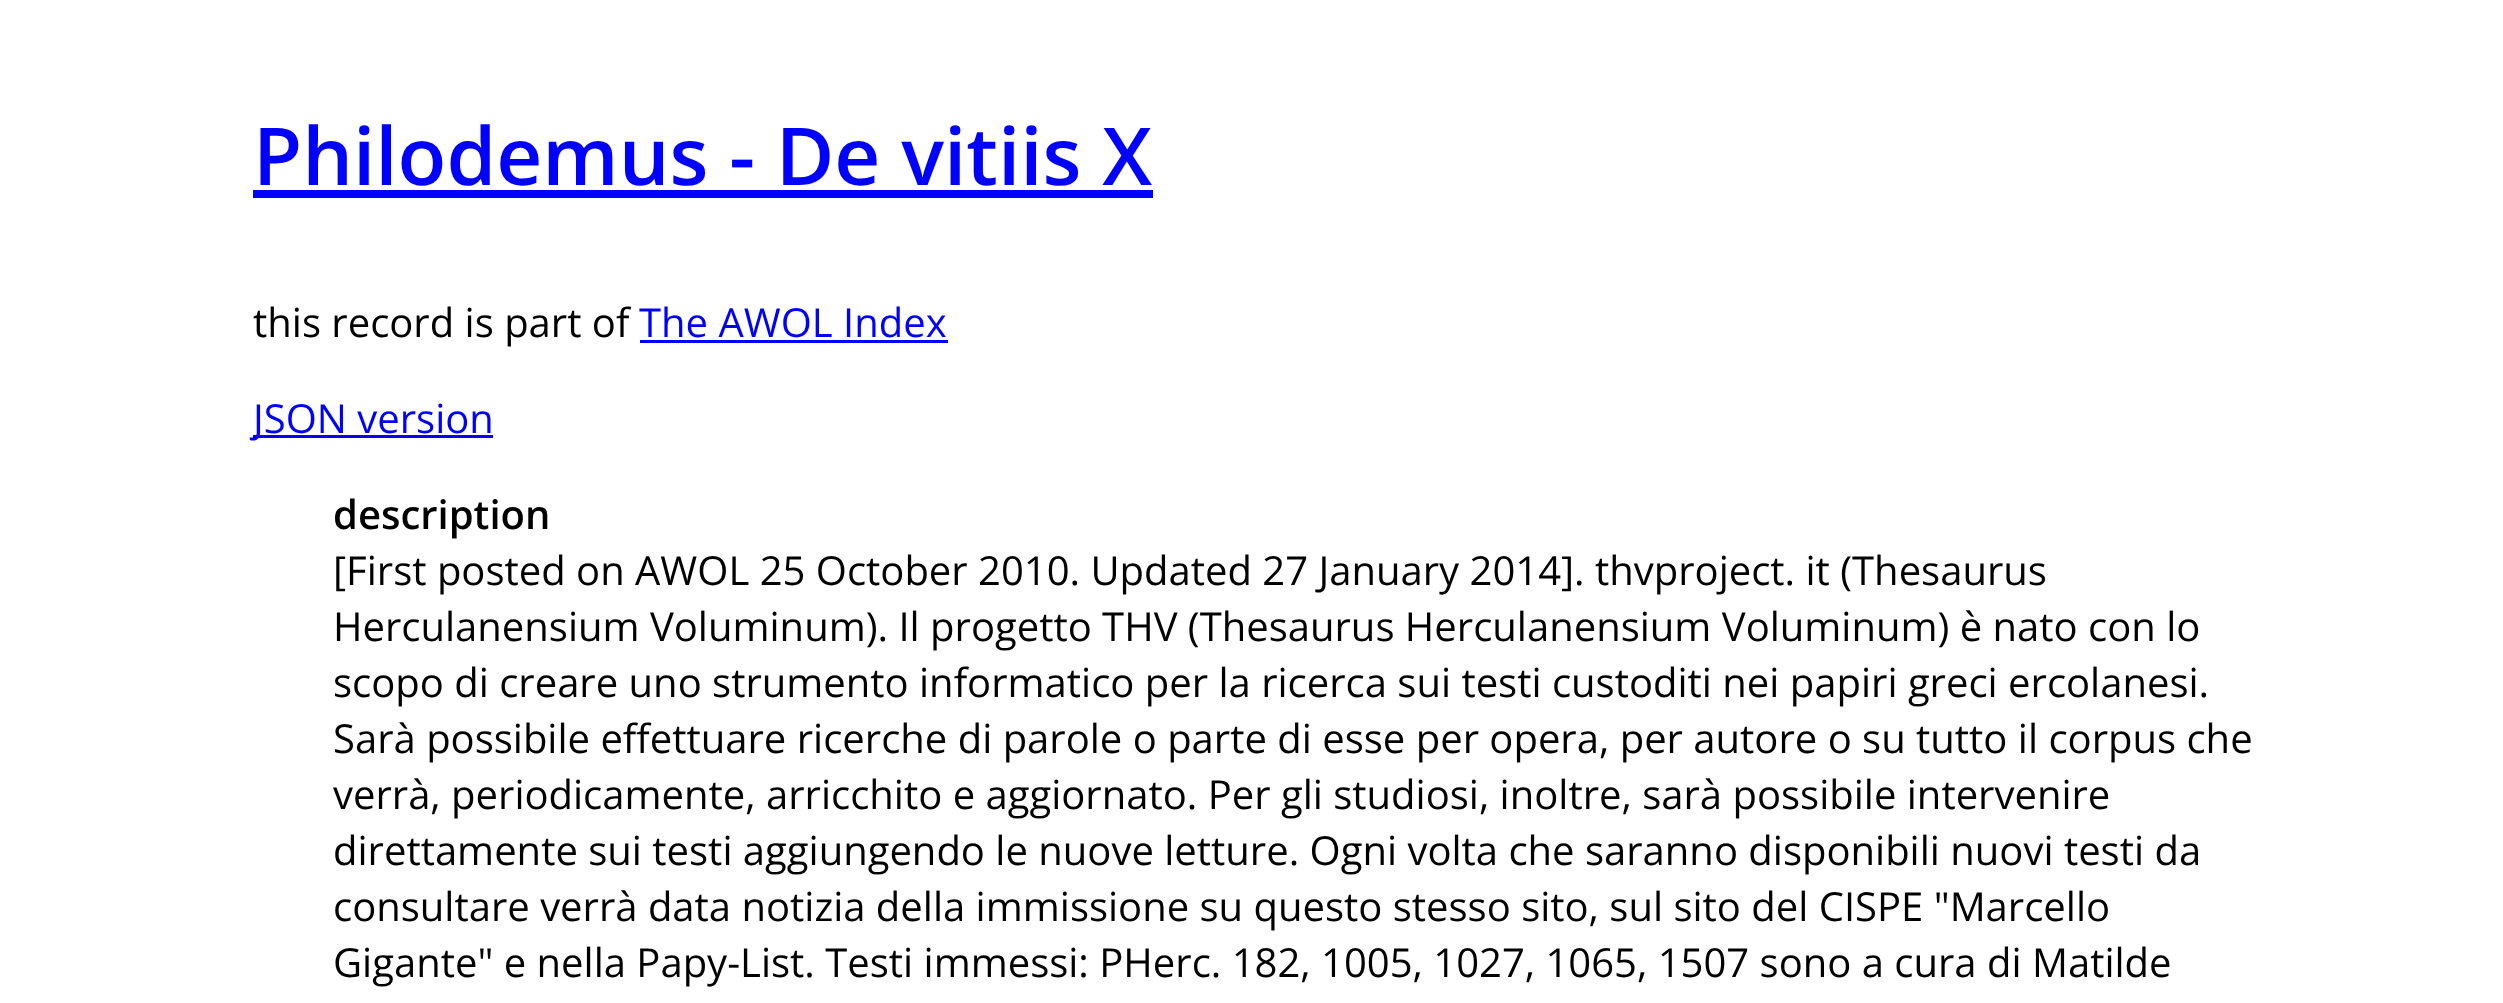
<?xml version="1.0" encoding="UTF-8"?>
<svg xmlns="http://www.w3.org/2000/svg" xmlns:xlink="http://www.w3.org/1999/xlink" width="2503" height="1003">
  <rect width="100%" height="100%" fill="#ffffff" />
  <rect x="253" y="190" width="900" height="8" fill="#0000ff" />
  <rect x="640" y="340" width="308" height="3" fill="#0000ff" />
  <rect x="253" y="435" width="240" height="3" fill="#0000ff" />
  <text x="253" y="185" style="font-family: Open Sans; font-size: 80px; font-weight: 600; fill: #0000ff">Philodemus - De vitiis X</text>
  <text x="253" y="337" style="font-family: Open Sans; font-size: 40px; fill: #000000">this record is part of</text>
  <text x="639" y="337" style="font-family: Open Sans; font-size: 40px; fill: #0000ff">The AWOL Index</text>
  <text x="253" y="433" style="font-family: Open Sans; font-size: 40px; fill: #0000ff">JSON version</text>
  <text x="333" y="529" style="font-family: Open Sans; font-size: 40px; font-weight: 600; fill: #000000">description</text>
  <text x="333" y="585" style="font-family: Open Sans; font-size: 40px; fill: #000000">[First posted on AWOL 25 October 2010. Updated 27 January 2014]. thvproject. it (Thesaurus</text>
  <text x="333" y="641" style="font-family: Open Sans; font-size: 40px; fill: #000000">Herculanensium Voluminum). Il progetto THV (Thesaurus Herculanensium Voluminum) è nato con lo</text>
  <text x="333" y="697" style="font-family: Open Sans; font-size: 40px; fill: #000000">scopo di creare uno strumento informatico per la ricerca sui testi custoditi nei papiri greci ercolanesi.</text>
  <text x="333" y="753" style="font-family: Open Sans; font-size: 40px; fill: #000000">Sarà possibile effettuare ricerche di parole o parte di esse per opera, per autore o su tutto il corpus che</text>
  <text x="333" y="809" style="font-family: Open Sans; font-size: 40px; fill: #000000">verrà, periodicamente, arricchito e aggiornato. Per gli studiosi, inoltre, sarà possibile intervenire</text>
  <text x="333" y="865" style="font-family: Open Sans; font-size: 40px; fill: #000000">direttamente sui testi aggiungendo le nuove letture. Ogni volta che saranno disponibili nuovi testi da</text>
  <text x="333" y="921" style="font-family: Open Sans; font-size: 40px; fill: #000000">consultare verrà data notizia della immissione su questo stesso sito, sul sito del CISPE "Marcello</text>
  <text x="333" y="977" style="font-family: Open Sans; font-size: 40px; fill: #000000">Gigante" e nella Papy-List. Testi immessi: PHerc. 182, 1005, 1027, 1065, 1507 sono a cura di Matilde</text>
</svg>
